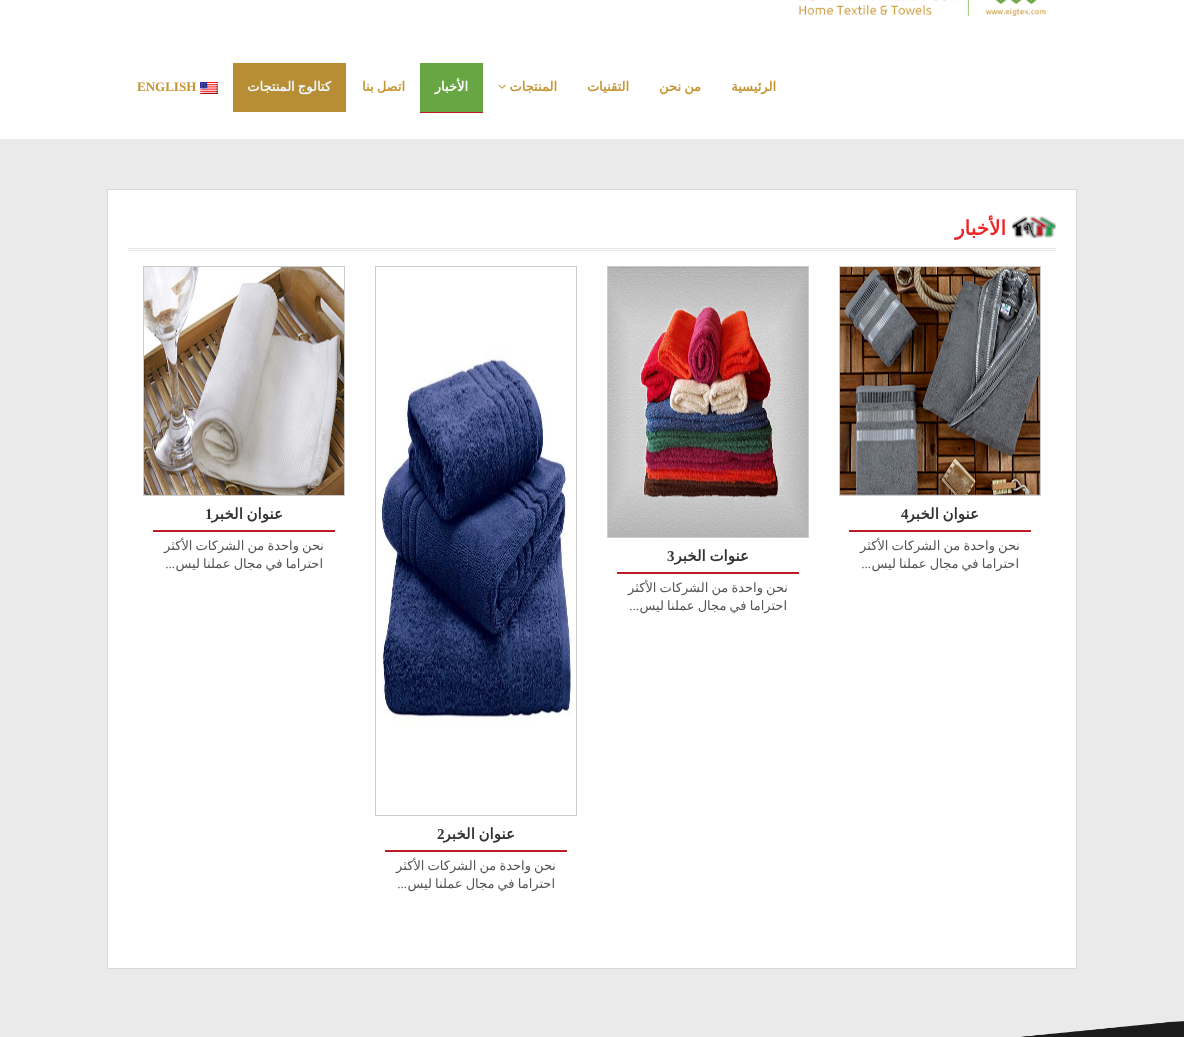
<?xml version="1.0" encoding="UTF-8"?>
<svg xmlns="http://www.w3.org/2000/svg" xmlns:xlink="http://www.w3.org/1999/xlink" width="1184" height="1037">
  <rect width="100%" height="100%" fill="#eaeaea" />
  <rect width="1184" height="139" fill="#ffffff" />
  <image x="798" y="0" width="249" height="16" xlink:href="image1.png" />
  <image x="498" y="84" width="8" height="5" xlink:href="image2.png" />
  <rect x="420" y="63" width="63" height="49" fill="#68a643" />
  <rect x="420" y="112" width="63" height="1" fill="#bd1c24" />
  <rect x="233" y="63" width="113" height="49" fill="#b78e33" />
  <image x="200" y="82" width="18" height="12" xlink:href="image3.png" />
  <rect x="107.5" y="189.5" width="969" height="779" fill="#ffffff" stroke="#d8d8d8" />
  <image x="1012" y="216" width="44" height="23" xlink:href="image4.png" />
  <rect x="128" y="248" width="928" height="1" fill="#e6e6e6" />
  <rect x="128" y="250" width="928" height="1" fill="#e6e6e6" />
  <rect x="839.5" y="266.5" width="201" height="229" fill="none" stroke="#cccccc" />
  <image x="840" y="267" width="200" height="228" xlink:href="image5.png" />
  <rect x="849" y="530" width="182" height="2" fill="#bd1c24" />
  <rect x="143.5" y="266.5" width="201" height="229" fill="none" stroke="#cccccc" />
  <image x="144" y="267" width="200" height="228" xlink:href="image6.png" />
  <rect x="153" y="530" width="182" height="2" fill="#bd1c24" />
  <rect x="607.5" y="266.5" width="201" height="271" fill="none" stroke="#cccccc" />
  <image x="608" y="267" width="200" height="270" xlink:href="image7.png" />
  <rect x="617" y="572" width="182" height="2" fill="#bd1c24" />
  <rect x="375.5" y="266.5" width="201" height="549" fill="none" stroke="#cccccc" />
  <image x="382" y="347" width="191" height="382" xlink:href="image8.png" />
  <rect x="385" y="850" width="182" height="2" fill="#bd1c24" />
  <image x="1021" y="1021" width="163" height="16" xlink:href="image9.png" />
  <text x="776" y="91" style="font-family: DejaVu Sans; font-size: 13px; font-weight: bold; direction: rtl; fill: #c69430">الرئيسية</text>
  <text x="701" y="91" word-spacing="-1" style="font-family: DejaVu Sans; font-size: 13px; font-weight: bold; direction: rtl; fill: #c69430">من نحن</text>
  <text x="629" y="91" style="font-family: DejaVu Sans; font-size: 13px; font-weight: bold; direction: rtl; fill: #c69430">التقنيات</text>
  <text x="557" y="91" style="font-family: DejaVu Sans; font-size: 13px; font-weight: bold; direction: rtl; fill: #c69430">المنتجات</text>
  <text x="468" y="91" style="font-family: DejaVu Sans; font-size: 13px; font-weight: bold; direction: rtl; fill: #ffffff">الأخبار</text>
  <text x="405" y="91" word-spacing="-1" style="font-family: DejaVu Sans; font-size: 13px; font-weight: bold; direction: rtl; fill: #c69430">اتصل بنا</text>
  <text x="331" y="91" word-spacing="-1" style="font-family: DejaVu Sans; font-size: 13px; font-weight: bold; direction: rtl; fill: #f0f8ff">كتالوج المنتجات</text>
  <text x="137" y="91" style="font-family: Liberation Serif; font-size: 13px; font-weight: bold; fill: #c69430">ENGLISH</text>
  <text x="1006" y="235" style="font-family: DejaVu Sans; font-size: 20px; font-weight: bold; direction: rtl; fill: #eb2629">الأخبار</text>
  <text x="901" y="519" style="font-family: Liberation Serif; font-size: 15px; font-weight: bold; fill: #333333">4</text>
  <text x="979" y="519" word-spacing="-1" style="font-family: DejaVu Sans; font-size: 15px; font-weight: bold; direction: rtl; fill: #333333">عنوان الخبر</text>
  <text x="1020" y="550" word-spacing="-1" style="font-family: DejaVu Sans; font-size: 13px; direction: rtl; fill: #555555">نحن واحدة من الشركات الأكثر</text>
  <text x="1019" y="568" word-spacing="-1" style="font-family: DejaVu Sans; font-size: 13px; direction: rtl; fill: #555555">احتراما في مجال عملنا ليس</text>
  <text x="871" y="568" style="font-family: Liberation Serif; font-size: 13px; direction: rtl; fill: #555555">...</text>
  <text x="205" y="519" style="font-family: Liberation Serif; font-size: 15px; font-weight: bold; fill: #333333">1</text>
  <text x="283" y="519" word-spacing="-1" style="font-family: DejaVu Sans; font-size: 15px; font-weight: bold; direction: rtl; fill: #333333">عنوان الخبر</text>
  <text x="324" y="550" word-spacing="-1" style="font-family: DejaVu Sans; font-size: 13px; direction: rtl; fill: #555555">نحن واحدة من الشركات الأكثر</text>
  <text x="323" y="568" word-spacing="-1" style="font-family: DejaVu Sans; font-size: 13px; direction: rtl; fill: #555555">احتراما في مجال عملنا ليس</text>
  <text x="175" y="568" style="font-family: Liberation Serif; font-size: 13px; direction: rtl; fill: #555555">...</text>
  <text x="667" y="561" style="font-family: Liberation Serif; font-size: 15px; font-weight: bold; fill: #333333">3</text>
  <text x="749" y="561" word-spacing="-1" style="font-family: DejaVu Sans; font-size: 15px; font-weight: bold; direction: rtl; fill: #333333">عنوات الخبر</text>
  <text x="788" y="592" word-spacing="-1" style="font-family: DejaVu Sans; font-size: 13px; direction: rtl; fill: #555555">نحن واحدة من الشركات الأكثر</text>
  <text x="787" y="610" word-spacing="-1" style="font-family: DejaVu Sans; font-size: 13px; direction: rtl; fill: #555555">احتراما في مجال عملنا ليس</text>
  <text x="639" y="610" style="font-family: Liberation Serif; font-size: 13px; direction: rtl; fill: #555555">...</text>
  <text x="437" y="839" style="font-family: Liberation Serif; font-size: 15px; font-weight: bold; fill: #333333">2</text>
  <text x="515" y="839" word-spacing="-1" style="font-family: DejaVu Sans; font-size: 15px; font-weight: bold; direction: rtl; fill: #333333">عنوان الخبر</text>
  <text x="556" y="870" word-spacing="-1" style="font-family: DejaVu Sans; font-size: 13px; direction: rtl; fill: #555555">نحن واحدة من الشركات الأكثر</text>
  <text x="555" y="888" word-spacing="-1" style="font-family: DejaVu Sans; font-size: 13px; direction: rtl; fill: #555555">احتراما في مجال عملنا ليس</text>
  <text x="407" y="888" style="font-family: Liberation Serif; font-size: 13px; direction: rtl; fill: #555555">...</text>
</svg>
